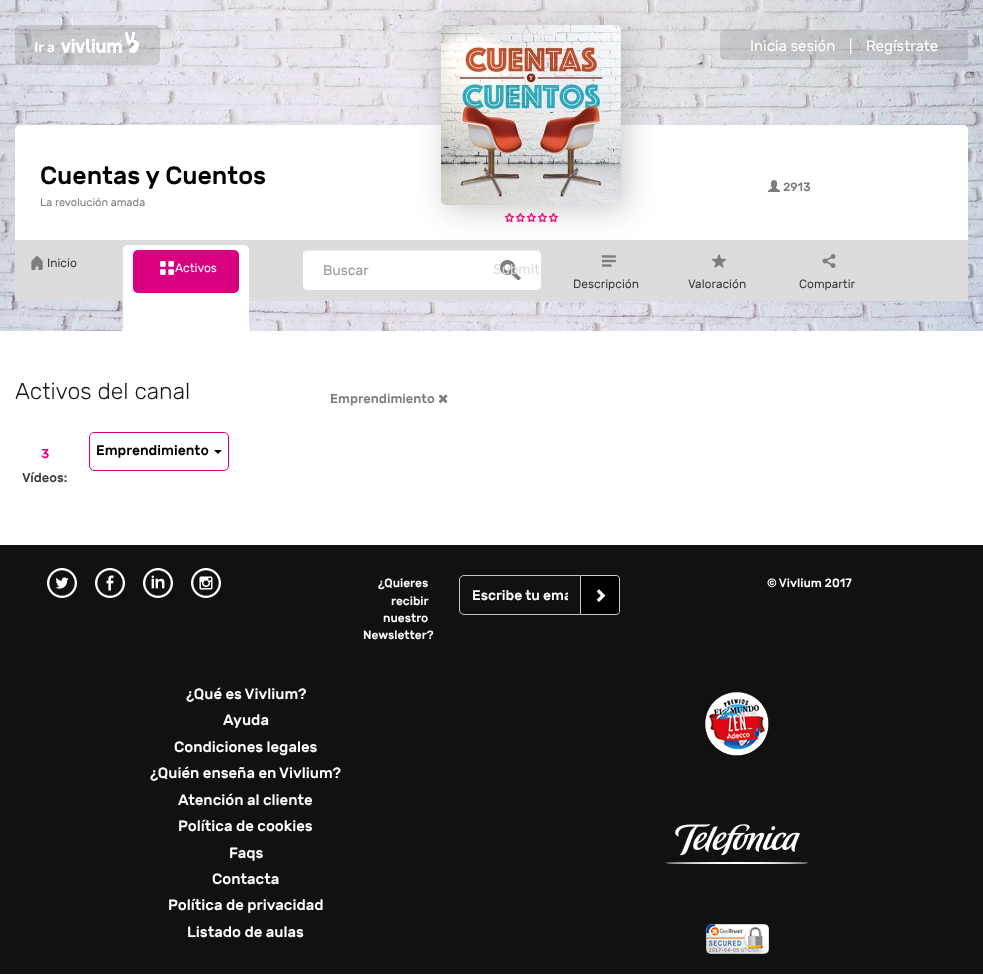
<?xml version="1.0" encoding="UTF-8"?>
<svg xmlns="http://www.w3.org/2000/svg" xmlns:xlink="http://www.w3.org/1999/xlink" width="983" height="975">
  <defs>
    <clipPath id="clip1"><rect x="472" y="587" width="96" height="17" /></clipPath>
  </defs>
  <rect width="100%" height="100%" fill="#ffffff" />
  <image x="0" y="0" width="983" height="331" xlink:href="image1.png" />
  <image x="15" y="25" width="145" height="40" xlink:href="image2.png" />
  <image x="720" y="30" width="248" height="30" xlink:href="image3.png" />
  <path d="M 20 125 h 943 c 3 0 5 2 5 5 v 171 h -953 v -171 c 0 -3 2 -5 5 -5 z" fill="#ffffff" />
  <rect x="15" y="240" width="953" height="61" fill="#dcdcdc" />
  <rect x="446" y="30" width="180" height="180" rx="5" fill="#000000" fill-opacity="0.2" filter="blur(15px)" />
  <image x="441" y="25" width="180" height="180" xlink:href="image4.png" />
  <image x="505" y="213" width="53" height="9" xlink:href="image5.png" />
  <image x="505" y="213" width="53" height="9" xlink:href="image6.png" />
  <image x="768" y="180" width="12" height="12" xlink:href="image7.png" />
  <image x="31" y="256" width="12" height="14" xlink:href="image8.png" />
  <path d="M 128 245 h 116 c 3 0 5 2 5 5 v 85 h -126 v -85 c 0 -3 2 -5 5 -5 z" fill="#ffffff" />
  <rect x="133" y="250" width="106" height="43" rx="5" fill="#d8007f" />
  <image x="160" y="261" width="14" height="14" xlink:href="image9.png" />
  <image x="121" y="328" width="2" height="3" xlink:href="image10.png" />
  <image x="249" y="328" width="1" height="3" xlink:href="image11.png" />
  <path d="M 308 250 h 173 v 40 h -173 c -3 0 -5 -2 -5 -5 v -30 c 0 -3 2 -5 5 -5 z" fill="#ffffff" />
  <path d="M 308 251 h 173 v -1 h -173 c -3 0 -5 3 -5 6 c 0 -3 2 -5 5 -5 z" fill="#000000" fill-opacity="0.07" />
  <path d="M 481 250 h 55 c 3 0 5 2 5 5 v 30 c 0 3 -2 5 -5 5 h -55 z" fill="#ffffff" />
  <image x="500" y="260" width="21" height="20" xlink:href="image12.png" />
  <path d="M 481 251 h 55 c 3 0 5 2 5 5 v -1 c 0 -3 -2 -5 -5 -5 h -55 z" fill="#000000" fill-opacity="0.07" />
  <image x="602" y="255" width="14" height="12" xlink:href="image13.png" />
  <image x="712" y="254" width="14" height="14" xlink:href="image14.png" />
  <image x="822" y="254" width="14" height="14" xlink:href="image15.png" />
  <image x="438" y="394" width="10" height="10" xlink:href="image16.png" />
  <rect x="89.5" y="432.5" width="139" height="38" rx="4.5" fill="none" stroke="#d8007f" />
  <path d="M 214 450 h 8 l -4 4 z" fill="#000000" />
  <rect y="545" width="983" height="429" fill="#111110" />
  <image x="47" y="568" width="30" height="30" xlink:href="image17.png" />
  <image x="95" y="568" width="30" height="30" xlink:href="image18.png" />
  <image x="143" y="568" width="30" height="30" xlink:href="image19.png" />
  <image x="191" y="568" width="30" height="30" xlink:href="image20.png" />
  <path d="M 464 575.5 h 116.5 v 39 h -116.5 c -2.5 0 -4.5 -2 -4.5 -4.5 v -30 c 0 -2.5 2 -4.5 4.5 -4.5 z" fill="none" stroke="#c7c6c6" />
  <path d="M 581 575 h 35 c 2 0 4 2 4 4 v 32 c 0 2 -2 4 -4 4 h -35 z" fill="#000000" />
  <path d="M 581 575 h 35 c 2 0 4 2 4 4 v 32 c 0 2 -2 4 -4 4 h -35 z m 0 1 h 35 c 2 0 3 1 3 3 v 32 c 0 2 -1 3 -3 3 h -35 z" fill="#cccccc" fill-rule="evenodd" />
  <image x="596" y="589" width="10" height="13" xlink:href="image21.png" />
  <image x="705" y="692" width="64" height="64" xlink:href="image22.png" />
  <image x="665" y="824" width="144" height="40" xlink:href="image23.png" />
  <image x="706" y="924" width="63" height="30" xlink:href="image24.png" />
  <text x="750" y="51" style="font-family: Rubik; font-size: 15px; fill: #ffffff">Inicia sesión</text>
  <text x="849" y="51" style="font-family: Rubik; font-size: 14px; fill: #ffffff">|</text>
  <text x="866" y="51" style="font-family: Rubik; font-size: 15px; fill: #ffffff">Regístrate</text>
  <text x="40" y="184" style="font-family: Rubik; font-size: 25px; font-weight: 500; fill: #000000">Cuentas y Cuentos</text>
  <text x="40" y="206" style="font-family: Rubik; font-size: 11px; fill: #7d7d7d">La revolución amada</text>
  <text x="783" y="191" style="font-family: Rubik; font-size: 12px; font-weight: 500; fill: #7d7d7d">2913</text>
  <text x="47" y="267" style="font-family: Rubik; font-size: 12px; fill: #3d3d3d">Inicio</text>
  <text x="175" y="272" style="font-family: Rubik; font-size: 12px; fill: #ffffff">Activos</text>
  <text x="323" y="275" style="font-family: Rubik; font-size: 14px; fill: #999999">Buscar</text>
  <text x="493" y="274" style="font-family: Rubik; font-size: 14px; fill: #dcdcdc">Submit</text>
  <text x="573" y="288" style="font-family: Rubik; font-size: 12px; fill: #3d3d3d">Descripción</text>
  <text x="688" y="288" style="font-family: Rubik; font-size: 12px; fill: #3d3d3d">Valoración</text>
  <text x="799" y="288" style="font-family: Rubik; font-size: 12px; fill: #3d3d3d">Compartir</text>
  <text x="15" y="399" style="font-family: Rubik; font-size: 23px; font-weight: 300; fill: #191919">Activos del canal</text>
  <text x="330" y="403" style="font-family: Rubik; font-size: 13px; font-weight: 500; fill: #7d7d7d">Emprendimiento</text>
  <text x="41" y="458" style="font-family: Rubik; font-size: 13px; font-weight: 500; fill: #e10686">3</text>
  <text x="22" y="482" style="font-family: Rubik; font-size: 13px; font-weight: 500; fill: #3d3d3d">Vídeos:</text>
  <text x="96" y="455" style="font-family: Rubik; font-size: 14px; font-weight: 500; fill: #000000">Emprendimiento</text>
  <text x="378" y="587" style="font-family: Rubik; font-size: 12px; font-weight: 500; fill: #ffffff">¿Quieres</text>
  <text x="391" y="605" style="font-family: Rubik; font-size: 12px; font-weight: 500; fill: #ffffff">recibir</text>
  <text x="383" y="622" style="font-family: Rubik; font-size: 12px; font-weight: 500; fill: #ffffff">nuestro</text>
  <text x="363" y="639" style="font-family: Rubik; font-size: 12px; font-weight: 500; fill: #ffffff">Newsletter?</text>
  <g clip-path="url(#clip1)">
    <text x="472" y="600" style="font-family: Rubik; font-size: 14px; font-weight: 500; fill: #ffffff">Escribe tu ema</text>
  </g>
  <text x="767" y="587" style="font-family: Rubik; font-size: 12px; font-weight: 500; fill: #ffffff">© Vivlium 2017</text>
  <text x="186" y="699" style="font-family: Rubik; font-size: 15px; font-weight: 500; fill: #ffffff">¿Qué es Vivlium?</text>
  <text x="223" y="725" style="font-family: Rubik; font-size: 15px; font-weight: 500; fill: #ffffff">Ayuda</text>
  <text x="174" y="752" style="font-family: Rubik; font-size: 15px; font-weight: 500; fill: #ffffff">Condiciones legales</text>
  <text x="150" y="778" style="font-family: Rubik; font-size: 15px; font-weight: 500; fill: #ffffff">¿Quién enseña en Vivlium?</text>
  <text x="178" y="805" style="font-family: Rubik; font-size: 15px; font-weight: 500; fill: #ffffff">Atención al cliente</text>
  <text x="178" y="831" style="font-family: Rubik; font-size: 15px; font-weight: 500; fill: #ffffff">Política de cookies</text>
  <text x="229" y="858" style="font-family: Rubik; font-size: 15px; font-weight: 500; fill: #ffffff">Faqs</text>
  <text x="212" y="884" style="font-family: Rubik; font-size: 15px; font-weight: 500; fill: #ffffff">Contacta</text>
  <text x="168" y="910" style="font-family: Rubik; font-size: 15px; font-weight: 500; fill: #ffffff">Política de privacidad</text>
  <text x="187" y="937" style="font-family: Rubik; font-size: 15px; font-weight: 500; fill: #ffffff">Listado de aulas</text>
</svg>
